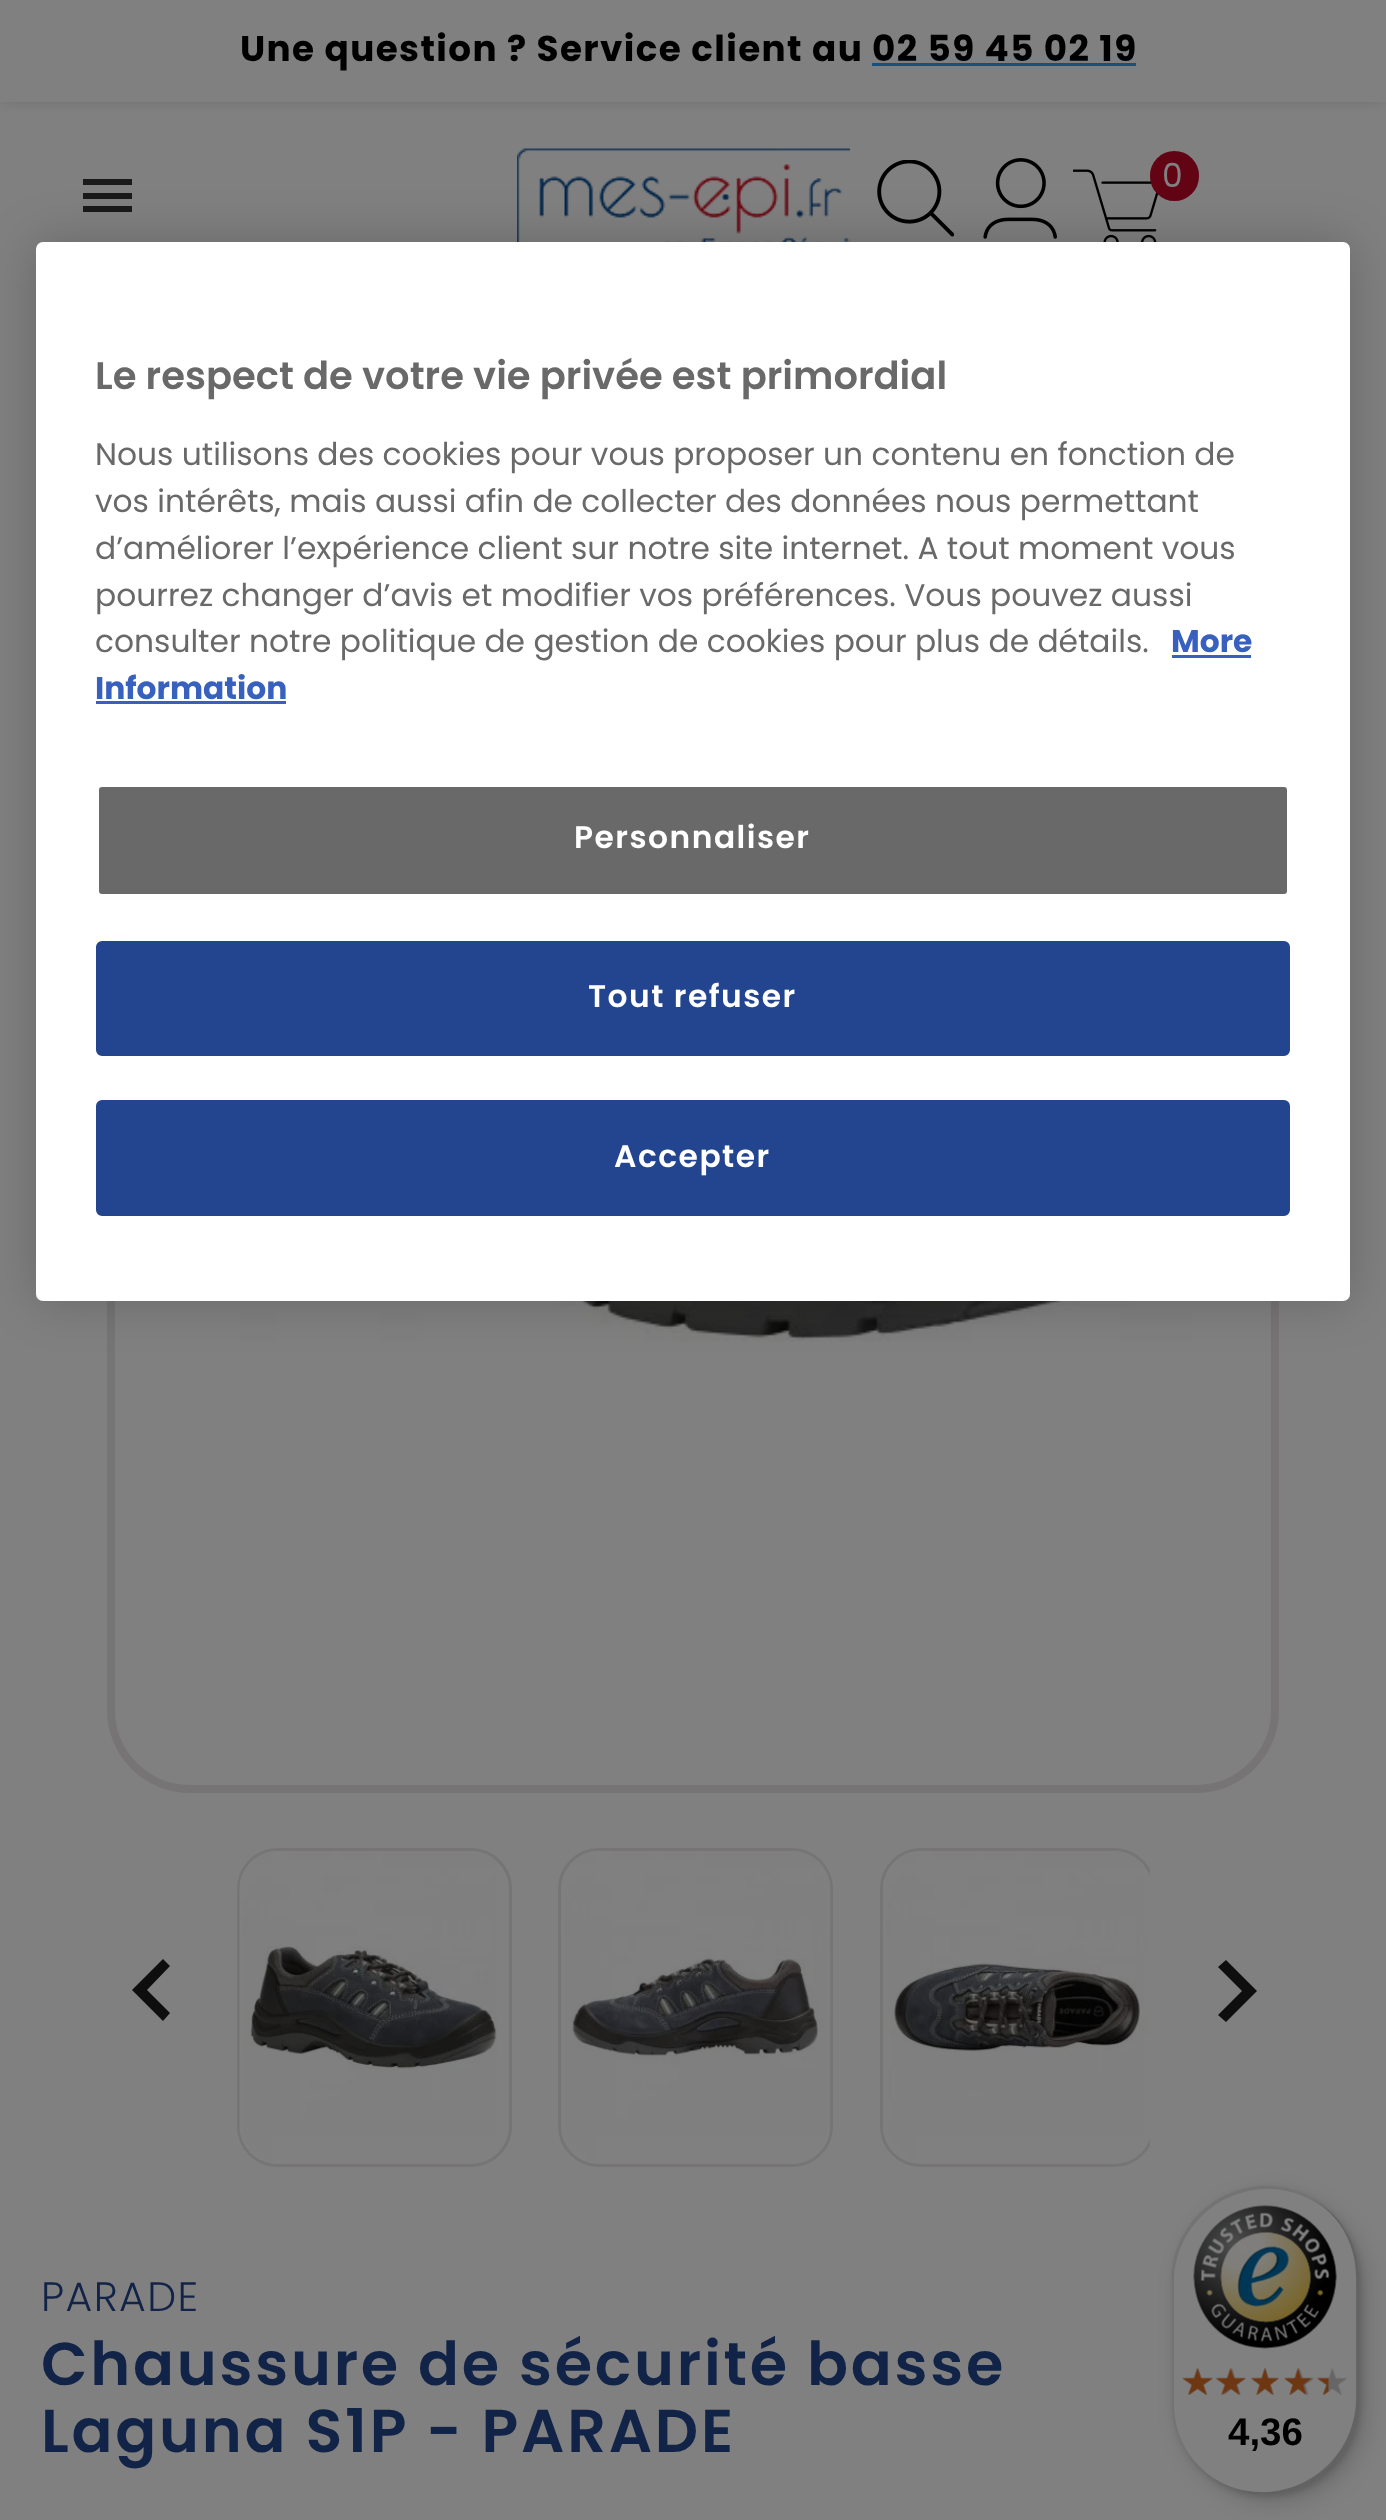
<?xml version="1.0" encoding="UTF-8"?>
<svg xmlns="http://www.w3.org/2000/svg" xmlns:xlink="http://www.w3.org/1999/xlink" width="1386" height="2520">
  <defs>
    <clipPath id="clip1"><rect x="237" y="1793" width="913" height="402" /></clipPath>
  </defs>
  <rect width="100%" height="100%" fill="#808080" />
  <rect x="3" y="3" width="1380" height="96" fill="#000000" fill-opacity="0.2" filter="blur(7px)" />
  <rect width="1386" height="102" fill="#808080" />
  <rect x="83" y="179" width="49" height="6" fill="#1a1a1a" />
  <rect x="83" y="193" width="49" height="6" fill="#1a1a1a" />
  <rect x="83" y="206" width="49" height="6" fill="#1a1a1a" />
  <image x="517" y="148" width="333" height="94" xlink:href="image1.png" />
  <image x="877" y="160" width="77" height="77" xlink:href="image2.png" />
  <image x="983" y="158" width="74" height="81" xlink:href="image3.png" />
  <image x="1073" y="169" width="86" height="73" xlink:href="image4.png" />
  <rect x="1150" y="151" width="49" height="50" rx="24.5" fill="#630415" />
  <rect x="111" y="400" width="1164" height="1389" rx="79" fill="none" stroke="#767474" stroke-width="8" />
  <image x="193" y="1301" width="999" height="41" xlink:href="image5.png" />
  <rect x="238.5" y="1849.5" width="272" height="316" rx="39.5" fill="none" stroke="#767474" stroke-width="3" />
  <image x="239" y="1851" width="258" height="313" xlink:href="image6.png" />
  <rect x="559.5" y="1849.5" width="272" height="316" rx="39.5" fill="none" stroke="#767474" stroke-width="3" />
  <image x="561" y="1851" width="270" height="313" xlink:href="image7.png" />
  <g clip-path="url(#clip1)">
    <rect x="881.5" y="1849.5" width="272" height="316" rx="39.5" fill="none" stroke="#767474" stroke-width="3" />
  </g>
  <image x="883" y="1851" width="267" height="313" xlink:href="image8.png" />
  <path d="M 170 2013 l -7 8 l -31 -31 l 31 -31 l 7 7 l -23 24 z" fill="#0e0e0e" />
  <path d="M 1218 2015 l 24 -24 l -24 -24 l 8 -7 l 31 31 l -31 31 z" fill="#0e0e0e" />
  <rect x="36" y="242" width="1314" height="1059" rx="7" fill="#000000" fill-opacity="0.2" filter="blur(25px)" />
  <rect x="36" y="242" width="1314" height="1059" rx="7" fill="#ffffff" />
  <rect x="1172" y="655" width="79" height="3" fill="#3860be" />
  <rect x="96" y="701" width="190" height="3" fill="#3860be" />
  <rect x="97.5" y="785.5" width="1191" height="110" rx="4.5" fill="#696969" stroke="#ffffff" stroke-width="3" />
  <rect x="97.5" y="942.5" width="1191" height="112" rx="4.5" fill="#23458f" stroke="#23458f" stroke-width="3" />
  <rect x="97.5" y="1101.5" width="1191" height="113" rx="4.5" fill="#23458f" stroke="#23458f" stroke-width="3" />
  <rect x="1180" y="2195" width="187" height="308" rx="93.5" fill="#000000" fill-opacity="0.15" filter="blur(11px)" />
  <rect x="1174" y="2189" width="187" height="308" rx="93.5" fill="#000000" fill-opacity="0.15" filter="blur(3px)" />
  <rect x="1172" y="2186" width="187" height="308" rx="93.5" fill="#808080" />
  <path d="M 1268 2189 c 31 0 59 16 76 40 c -17 -26 -46 -43 -78 -43 c -52 0 -94 42 -94 94 v 120 c 0 20 6 39 17 54 c -10 -14 -15 -32 -15 -50 v -122 c 0 -51 42 -93 94 -93 z" fill="#000000" fill-opacity="0.1" />
  <path d="M 1212 2477 c 15 11 34 17 54 17 c 51 0 93 -42 93 -94 v -120 c 0 -32 -16 -61 -40 -77 c 22 16 37 43 37 74 v 121 c 0 52 -42 94 -94 94 c -18 0 -36 -5 -50 -15 z" fill="#000000" fill-opacity="0.2" />
  <path d="M 1224 2484 c 12 6 26 10 42 10 c 51 0 93 -42 93 -94 v -120 c 0 -37 -20 -68 -50 -83 c 29 15 48 46 48 81 v 121 c 0 52 -42 94 -94 94 c -14 0 -27 -3 -39 -9 z" fill="#191919" fill-opacity="0.2" />
  <path d="M 1217 2481 c 14 8 31 13 49 13 c 51 0 93 -42 93 -94 v -120 c 0 -37 -21 -69 -51 -84 c 29 16 49 47 49 82 v 121 c 0 52 -42 94 -93 94 c -17 0 -33 -4 -47 -12 z" fill="#808080" fill-opacity="0.3" />
  <image x="1193" y="2205" width="144" height="144" xlink:href="image9.png" />
  <image x="1182" y="2368" width="31" height="27" xlink:href="image15.png" />
  <image x="1182" y="2367" width="31" height="28" xlink:href="image10.png" />
  <image x="1218" y="2368" width="28" height="27" xlink:href="image16.png" />
  <image x="1215" y="2367" width="31" height="28" xlink:href="image11.png" />
  <image x="1251" y="2368" width="28" height="27" xlink:href="image17.png" />
  <image x="1251" y="2367" width="28" height="28" xlink:href="image12.png" />
  <image x="1284" y="2368" width="31" height="27" xlink:href="image18.png" />
  <image x="1284" y="2367" width="28" height="28" xlink:href="image13.png" />
  <image x="1317" y="2368" width="31" height="27" xlink:href="image19.png" />
  <image x="1317" y="2377" width="12" height="18" xlink:href="image14.png" />
  <text x="240" y="61" style="font-family: Poppins; font-size: 35.75px; font-weight: bold; letter-spacing: 1.4px; fill: #000000">Une question ? Service client au 02 59 45 02 19</text>
  <rect x="872" y="63" width="264" height="3" fill="#16507f" />
  <text x="1162" y="187" style="font-family: Poppins; font-size: 33px; letter-spacing: 1.4px; fill: #808080">0</text>
  <text x="41" y="2311" style="font-family: Poppins; font-size: 41px; font-weight: 300; letter-spacing: 1.4px; fill: #122348">PARADE</text>
  <text x="41" y="2385" style="font-family: Poppins; font-size: 60.5px; font-weight: 600; letter-spacing: 2.75px; fill: #122348">Chaussure de sécurité basse</text>
  <text x="41" y="2452" style="font-family: Poppins; font-size: 60.5px; font-weight: 600; letter-spacing: 2.75px; fill: #122348">Laguna S1P - PARADE</text>
  <text x="95" y="389" style="font-family: Poppins; font-size: 38.5px; font-weight: 600; fill: #696969">Le respect de votre vie privée est primordial</text>
  <text x="95" y="465" style="font-family: Poppins; font-size: 31.3px; fill: #696969">Nous utilisons des cookies pour vous proposer un contenu en fonction de</text>
  <text x="95" y="512" style="font-family: Poppins; font-size: 31.3px; fill: #696969">vos intérêts, mais aussi afin de collecter des données nous permettant</text>
  <text x="95" y="559" style="font-family: Poppins; font-size: 31.3px; fill: #696969">d’améliorer l’expérience client sur notre site internet. A tout moment vous</text>
  <text x="95" y="606" style="font-family: Poppins; font-size: 31.3px; fill: #696969">pourrez changer d’avis et modifier vos préférences. Vous pouvez aussi</text>
  <text x="95" y="652" style="font-family: Poppins; font-size: 31.3px; fill: #696969">consulter notre politique de gestion de cookies pour plus de détails.</text>
  <text x="1171" y="652" style="font-family: Poppins; font-size: 31.3px; font-weight: bold; fill: #3860be">More</text>
  <text x="95" y="699" style="font-family: Poppins; font-size: 31.3px; font-weight: bold; fill: #3860be">Information</text>
  <text x="574" y="848" style="font-family: Poppins; font-size: 31.3px; font-weight: 600; letter-spacing: 1.5px; fill: #ffffff">Personnaliser</text>
  <text x="588" y="1007" style="font-family: Poppins; font-size: 31.3px; font-weight: 600; letter-spacing: 1.5px; fill: #ffffff">Tout refuser</text>
  <text x="614" y="1167" style="font-family: Poppins; font-size: 31.3px; font-weight: 600; letter-spacing: 1.5px; fill: #ffffff">Accepter</text>
  <text x="1228" y="2445" style="font-family: Liberation Sans; font-size: 38.5px; font-weight: bold; fill: #000000">4,36</text>
</svg>
